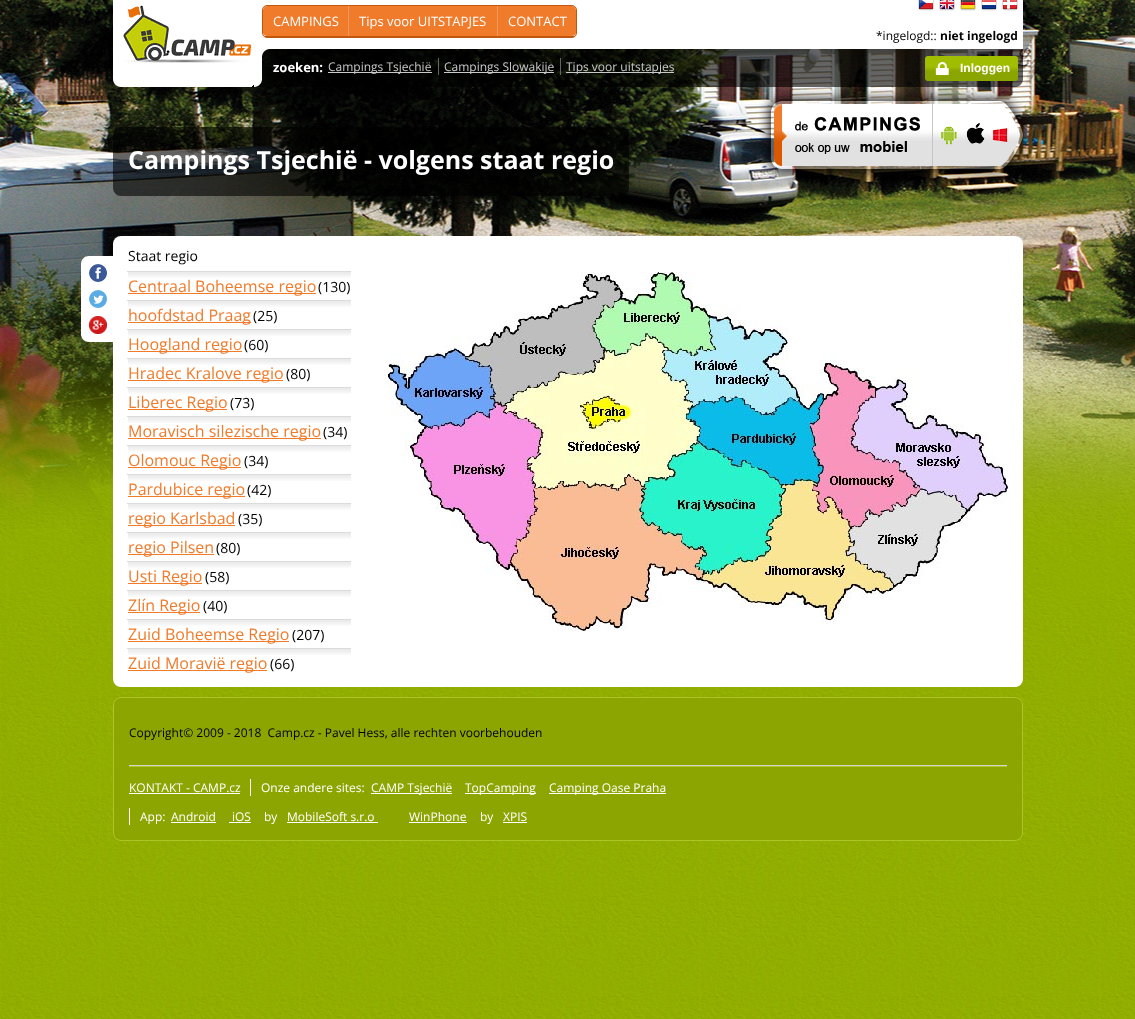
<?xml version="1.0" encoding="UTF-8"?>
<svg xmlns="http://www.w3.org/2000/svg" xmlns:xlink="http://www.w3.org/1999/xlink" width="1135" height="1019">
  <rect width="100%" height="100%" fill="#ffffff" />
  <image x="0" y="851" width="1135" height="168" xlink:href="image1.png" />
  <image x="0" y="620" width="1135" height="231" xlink:href="image2.png" />
  <image x="0" y="0" width="1135" height="620" xlink:href="image3.png" />
  <image x="113" y="0" width="910" height="87" xlink:href="image4.png" />
  <image x="123" y="5" width="131" height="82" xlink:href="image5.png" />
  <path d="M 267 6 h 305 c 2 0 4 2 4 4 v 23 c 0 2 -2 3 -4 3 h -305 c -2 0 -4 -1 -4 -3 v -23 c 0 -2 2 -4 4 -4 z" fill="#f07b2b" />
  <rect x="262.5" y="5.5" width="314" height="32" rx="4.5" fill="none" stroke="#c1560e" />
  <rect x="265" y="36" width="310" height="1" fill="#c1560e" />
  <rect x="348" y="6" width="1" height="30" fill="#f3995b" />
  <rect x="497" y="6" width="1" height="30" fill="#f3995b" />
  <image x="918" y="0" width="16" height="11" xlink:href="image6.png" />
  <image x="939" y="0" width="16" height="11" xlink:href="image7.png" />
  <image x="960" y="0" width="16" height="11" xlink:href="image8.png" />
  <image x="981" y="0" width="16" height="11" xlink:href="image9.png" />
  <image x="1002" y="0" width="16" height="11" xlink:href="image10.png" />
  <rect x="328" y="72" width="104" height="1" fill="#cacaca" />
  <rect x="438" y="58" width="1" height="17" fill="#646464" />
  <rect x="444" y="72" width="110" height="1" fill="#cacaca" />
  <rect x="560" y="58" width="1" height="17" fill="#646464" />
  <rect x="566" y="72" width="108" height="1" fill="#cacaca" />
  <image x="925" y="56" width="93" height="25" xlink:href="image11.png" />
  <image x="935" y="62" width="14" height="13" xlink:href="image12.png" />
  <rect x="113" y="127" width="516" height="69" rx="8" fill="#000000" fill-opacity="0.6" />
  <image x="759" y="89" width="173" height="92" xlink:href="image13.png" />
  <image x="932" y="89" width="29" height="90" xlink:href="image14.png" />
  <image x="961" y="89" width="27" height="90" xlink:href="image15.png" />
  <image x="988" y="89" width="45" height="88" xlink:href="image16.png" />
  <rect x="113" y="236" width="910" height="451" rx="8" fill="#ffffff" />
  <path d="M 89 256 h 24 v 86 h -24 c -4.5 0 -8 -3.5 -8 -8 v -70 c 0 -4.5 3.5 -8 8 -8 z" fill="#ffffff" />
  <image x="89" y="264" width="18" height="18" xlink:href="image17.png" />
  <image x="89" y="290" width="18" height="18" xlink:href="image18.png" />
  <image x="89" y="316" width="18" height="18" xlink:href="image19.png" />
  <image x="128" y="272" width="223" height="6" xlink:href="image20.png" />
  <rect x="127" y="271" width="224" height="1" fill="#dbdbdb" />
  <rect x="128" y="293" width="188" height="1" fill="#f07b2b" />
  <image x="128" y="301" width="223" height="6" xlink:href="image20.png" />
  <rect x="127" y="300" width="224" height="1" fill="#dbdbdb" />
  <rect x="128" y="322" width="123" height="1" fill="#f07b2b" />
  <image x="128" y="330" width="223" height="6" xlink:href="image20.png" />
  <rect x="127" y="329" width="224" height="1" fill="#dbdbdb" />
  <rect x="128" y="351" width="114" height="1" fill="#f07b2b" />
  <image x="128" y="359" width="223" height="6" xlink:href="image20.png" />
  <rect x="127" y="358" width="224" height="1" fill="#dbdbdb" />
  <rect x="128" y="380" width="155" height="1" fill="#f07b2b" />
  <image x="128" y="388" width="223" height="6" xlink:href="image20.png" />
  <rect x="127" y="387" width="224" height="1" fill="#dbdbdb" />
  <rect x="128" y="409" width="99" height="1" fill="#f07b2b" />
  <image x="128" y="417" width="223" height="6" xlink:href="image20.png" />
  <rect x="127" y="416" width="224" height="1" fill="#dbdbdb" />
  <rect x="128" y="438" width="193" height="1" fill="#f07b2b" />
  <image x="128" y="446" width="223" height="6" xlink:href="image20.png" />
  <rect x="127" y="445" width="224" height="1" fill="#dbdbdb" />
  <rect x="128" y="467" width="113" height="1" fill="#f07b2b" />
  <image x="128" y="475" width="223" height="6" xlink:href="image20.png" />
  <rect x="127" y="474" width="224" height="1" fill="#dbdbdb" />
  <rect x="128" y="496" width="117" height="1" fill="#f07b2b" />
  <image x="128" y="504" width="223" height="6" xlink:href="image20.png" />
  <rect x="127" y="503" width="224" height="1" fill="#dbdbdb" />
  <rect x="128" y="525" width="107" height="1" fill="#f07b2b" />
  <image x="128" y="533" width="223" height="6" xlink:href="image20.png" />
  <rect x="127" y="532" width="224" height="1" fill="#dbdbdb" />
  <rect x="128" y="554" width="86" height="1" fill="#f07b2b" />
  <image x="128" y="562" width="223" height="6" xlink:href="image20.png" />
  <rect x="127" y="561" width="224" height="1" fill="#dbdbdb" />
  <rect x="128" y="583" width="74" height="1" fill="#f07b2b" />
  <image x="128" y="591" width="223" height="6" xlink:href="image20.png" />
  <rect x="127" y="590" width="224" height="1" fill="#dbdbdb" />
  <rect x="128" y="612" width="72" height="1" fill="#f07b2b" />
  <image x="128" y="620" width="223" height="6" xlink:href="image20.png" />
  <rect x="127" y="619" width="224" height="1" fill="#dbdbdb" />
  <rect x="128" y="641" width="161" height="1" fill="#f07b2b" />
  <image x="128" y="649" width="223" height="6" xlink:href="image20.png" />
  <rect x="127" y="648" width="224" height="1" fill="#dbdbdb" />
  <rect x="128" y="670" width="139" height="1" fill="#f07b2b" />
  <image x="388" y="272" width="620" height="359" xlink:href="image21.png" />
  <rect x="113.5" y="697.5" width="909" height="143" rx="7.5" fill="#8ca500" stroke="#adc527" />
  <rect x="129" y="765" width="878" height="1" fill="#d4d4d4" />
  <rect x="129" y="766" width="878" height="1" fill="#adc527" />
  <rect x="129" y="793" width="111" height="1" fill="#ffffff" />
  <rect x="250" y="779" width="1" height="17" fill="#ffffff" />
  <rect x="371" y="793" width="81" height="1" fill="#ffffff" />
  <rect x="465" y="793" width="71" height="1" fill="#ffffff" />
  <rect x="549" y="793" width="117" height="1" fill="#ffffff" />
  <rect x="129" y="808" width="1" height="17" fill="#ffffff" />
  <rect x="171" y="822" width="45" height="1" fill="#ffffff" />
  <rect x="229" y="822" width="22" height="1" fill="#ffffff" />
  <rect x="287" y="822" width="91" height="1" fill="#ffffff" />
  <rect x="409" y="822" width="58" height="1" fill="#ffffff" />
  <rect x="503" y="822" width="24" height="1" fill="#ffffff" />
  <text x="273" y="26" style="font-family: Open Sans; font-size: 13px; fill: #ffffff">CAMPINGS</text>
  <text x="359" y="26" style="font-family: Open Sans; font-size: 13px; fill: #ffffff">Tips voor UITSTAPJES</text>
  <text x="508" y="26" style="font-family: Open Sans; font-size: 13px; fill: #ffffff">CONTACT</text>
  <text x="273" y="72" style="font-family: Open Sans; font-size: 13px; font-weight: bold; fill: #ffffff">zoeken:</text>
  <text x="328" y="71" style="font-family: Open Sans; font-size: 12px; fill: #cacaca">Campings Tsjechië</text>
  <text x="444" y="71" style="font-family: Open Sans; font-size: 12px; fill: #cacaca">Campings Slowakije</text>
  <text x="566" y="71" style="font-family: Open Sans; font-size: 12px; fill: #cacaca">Tips voor uitstapjes</text>
  <text x="876" y="40" style="font-family: Open Sans; font-size: 12px; fill: #000000">*ingelogd::</text>
  <text x="940" y="40" style="font-family: Open Sans; font-size: 12px; font-weight: bold; fill: #000000">niet ingelogd</text>
  <text x="960" y="72" style="font-family: Liberation Sans; font-size: 12px; font-weight: bold; fill: #ffffff">Inloggen</text>
  <text x="128" y="169" style="font-family: Open Sans; font-size: 25px; font-weight: bold; fill: #ffffff">Campings Tsjechië - volgens staat regio</text>
  <text x="128" y="261" style="font-family: Open Sans; font-size: 14px; fill: #000000">Staat regio</text>
  <text x="128" y="292" style="font-family: Open Sans; font-size: 16px; fill: #f07b2b">Centraal Boheemse regio</text>
  <text x="318" y="292" style="font-family: Open Sans; font-size: 14px; fill: #000000">(130)</text>
  <text x="128" y="321" style="font-family: Open Sans; font-size: 16px; fill: #f07b2b">hoofdstad Praag</text>
  <text x="253" y="321" style="font-family: Open Sans; font-size: 14px; fill: #000000">(25)</text>
  <text x="128" y="350" style="font-family: Open Sans; font-size: 16px; fill: #f07b2b">Hoogland regio</text>
  <text x="244" y="350" style="font-family: Open Sans; font-size: 14px; fill: #000000">(60)</text>
  <text x="128" y="379" style="font-family: Open Sans; font-size: 16px; fill: #f07b2b">Hradec Kralove regio</text>
  <text x="286" y="379" style="font-family: Open Sans; font-size: 14px; fill: #000000">(80)</text>
  <text x="128" y="408" style="font-family: Open Sans; font-size: 16px; fill: #f07b2b">Liberec Regio</text>
  <text x="230" y="408" style="font-family: Open Sans; font-size: 14px; fill: #000000">(73)</text>
  <text x="128" y="437" style="font-family: Open Sans; font-size: 16px; fill: #f07b2b">Moravisch silezische regio</text>
  <text x="323" y="437" style="font-family: Open Sans; font-size: 14px; fill: #000000">(34)</text>
  <text x="128" y="466" style="font-family: Open Sans; font-size: 16px; fill: #f07b2b">Olomouc Regio</text>
  <text x="244" y="466" style="font-family: Open Sans; font-size: 14px; fill: #000000">(34)</text>
  <text x="128" y="495" style="font-family: Open Sans; font-size: 16px; fill: #f07b2b">Pardubice regio</text>
  <text x="247" y="495" style="font-family: Open Sans; font-size: 14px; fill: #000000">(42)</text>
  <text x="128" y="524" style="font-family: Open Sans; font-size: 16px; fill: #f07b2b">regio Karlsbad</text>
  <text x="238" y="524" style="font-family: Open Sans; font-size: 14px; fill: #000000">(35)</text>
  <text x="128" y="553" style="font-family: Open Sans; font-size: 16px; fill: #f07b2b">regio Pilsen</text>
  <text x="216" y="553" style="font-family: Open Sans; font-size: 14px; fill: #000000">(80)</text>
  <text x="128" y="582" style="font-family: Open Sans; font-size: 16px; fill: #f07b2b">Usti Regio</text>
  <text x="205" y="582" style="font-family: Open Sans; font-size: 14px; fill: #000000">(58)</text>
  <text x="128" y="611" style="font-family: Open Sans; font-size: 16px; fill: #f07b2b">Zlín Regio</text>
  <text x="203" y="611" style="font-family: Open Sans; font-size: 14px; fill: #000000">(40)</text>
  <text x="128" y="640" style="font-family: Open Sans; font-size: 16px; fill: #f07b2b">Zuid Boheemse Regio</text>
  <text x="292" y="640" style="font-family: Open Sans; font-size: 14px; fill: #000000">(207)</text>
  <text x="128" y="669" style="font-family: Open Sans; font-size: 16px; fill: #f07b2b">Zuid Moravië regio</text>
  <text x="270" y="669" style="font-family: Open Sans; font-size: 14px; fill: #000000">(66)</text>
  <text x="129" y="737" style="font-family: Open Sans; font-size: 12px; fill: #000000" xml:space="preserve">Copyright© 2009 - 2018  Camp.cz - Pavel Hess, alle rechten voorbehouden</text>
  <text x="129" y="792" style="font-family: Open Sans; font-size: 12px; fill: #ffffff">KONTAKT - CAMP.cz</text>
  <text x="261" y="792" style="font-family: Open Sans; font-size: 12px; fill: #ffffff">Onze andere sites:</text>
  <text x="371" y="792" style="font-family: Open Sans; font-size: 12px; fill: #ffffff">CAMP Tsjechië</text>
  <text x="465" y="792" style="font-family: Open Sans; font-size: 12px; fill: #ffffff">TopCamping</text>
  <text x="549" y="792" style="font-family: Open Sans; font-size: 12px; fill: #ffffff">Camping Oase Praha</text>
  <text x="140" y="821" style="font-family: Open Sans; font-size: 12px; fill: #ffffff">App:</text>
  <text x="171" y="821" style="font-family: Open Sans; font-size: 12px; fill: #ffffff">Android</text>
  <text x="232" y="821" style="font-family: Open Sans; font-size: 12px; fill: #ffffff">iOS</text>
  <text x="264" y="821" style="font-family: Open Sans; font-size: 12px; fill: #ffffff">by</text>
  <text x="287" y="821" style="font-family: Open Sans; font-size: 12px; fill: #ffffff">MobileSoft s.r.o</text>
  <text x="409" y="821" style="font-family: Open Sans; font-size: 12px; fill: #ffffff">WinPhone</text>
  <text x="480" y="821" style="font-family: Open Sans; font-size: 12px; fill: #ffffff">by</text>
  <text x="503" y="821" style="font-family: Open Sans; font-size: 12px; fill: #ffffff">XPIS</text>
</svg>
